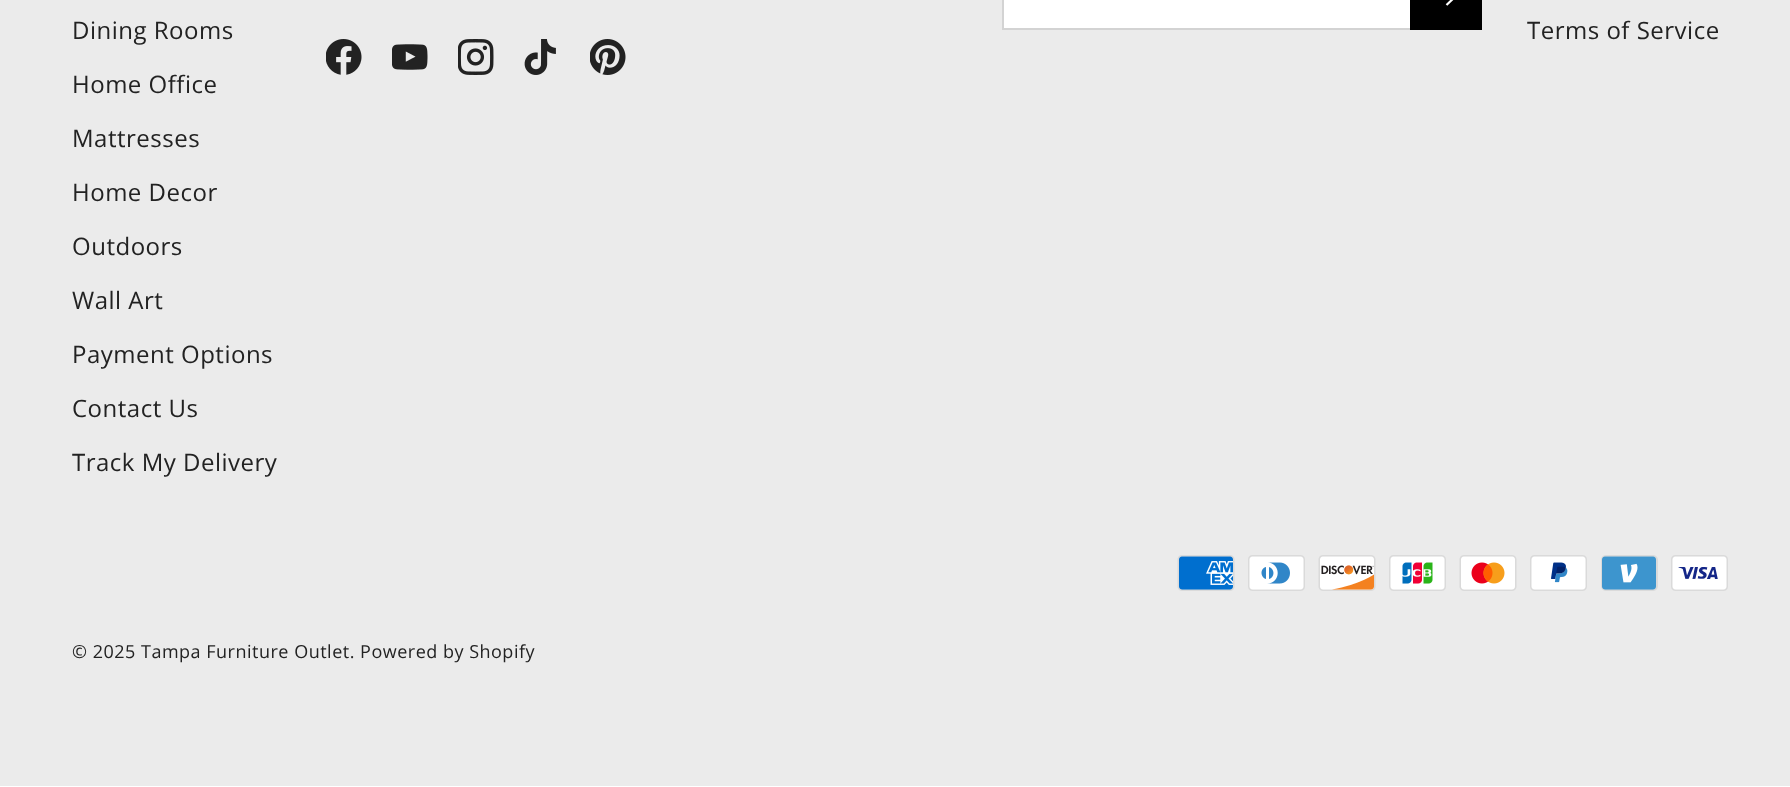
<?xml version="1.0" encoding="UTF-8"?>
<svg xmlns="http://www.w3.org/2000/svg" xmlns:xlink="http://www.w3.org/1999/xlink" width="1790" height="787">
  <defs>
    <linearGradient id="g1" gradientUnits="userSpaceOnUse" x1="1264" y1="-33" x2="1484" y2="21"><stop offset="0.6" stop-color="#2e2e2e" /><stop offset="0.6" stop-color="#000000" /><stop offset="1" stop-color="#000000" /></linearGradient>
  </defs>
  <rect width="100%" height="100%" fill="#ffffff" />
  <rect width="1790" height="786" fill="#ebebeb" />
  <image x="326" y="39" width="36" height="36" xlink:href="image1.png" />
  <image x="392" y="44" width="36" height="26" xlink:href="image2.png" />
  <image x="458" y="39" width="36" height="36" xlink:href="image3.png" />
  <image x="524" y="39" width="32" height="36" xlink:href="image4.png" />
  <image x="590" y="39" width="36" height="36" xlink:href="image5.png" />
  <rect x="1004" width="406" height="28" fill="#ffffff" />
  <rect x="1003" y="-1" width="475" height="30" fill="none" stroke="#d3d3d3" stroke-width="2" />
  <rect x="1410" width="72" height="30" fill="url(#g1)" />
  <path d="M 1435 -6 h 22 m -10.5 -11 l 11.5 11 l -11.5 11" fill="none" stroke="#ffffff" stroke-width="2.2" />
  <image x="1177" y="555" width="58" height="36" xlink:href="image6.png" />
  <image x="1248" y="555" width="57" height="36" xlink:href="image7.png" />
  <image x="1318" y="555" width="58" height="36" xlink:href="image8.png" />
  <image x="1389" y="555" width="57" height="36" xlink:href="image9.png" />
  <image x="1459" y="555" width="58" height="36" xlink:href="image10.png" />
  <image x="1530" y="555" width="57" height="36" xlink:href="image11.png" />
  <image x="1601" y="555" width="57" height="36" xlink:href="image12.png" />
  <image x="1671" y="555" width="57" height="36" xlink:href="image13.png" />
  <text x="72" y="39" style="font-family: Open Sans; font-size: 24px; letter-spacing: 0.5px; fill: #222222">Dining Rooms</text>
  <text x="72" y="93" style="font-family: Open Sans; font-size: 24px; letter-spacing: 0.5px; fill: #222222">Home Office</text>
  <text x="72" y="147" style="font-family: Open Sans; font-size: 24px; letter-spacing: 0.5px; fill: #222222">Mattresses</text>
  <text x="72" y="201" style="font-family: Open Sans; font-size: 24px; letter-spacing: 0.5px; fill: #222222">Home Decor</text>
  <text x="72" y="255" style="font-family: Open Sans; font-size: 24px; letter-spacing: 0.5px; fill: #222222">Outdoors</text>
  <text x="72" y="309" style="font-family: Open Sans; font-size: 24px; letter-spacing: 0.5px; fill: #222222">Wall Art</text>
  <text x="72" y="363" style="font-family: Open Sans; font-size: 24px; letter-spacing: 0.5px; fill: #222222">Payment Options</text>
  <text x="72" y="417" style="font-family: Open Sans; font-size: 24px; letter-spacing: 0.5px; fill: #222222">Contact Us</text>
  <text x="72" y="471" style="font-family: Open Sans; font-size: 24px; letter-spacing: 0.5px; fill: #222222">Track My Delivery</text>
  <text x="1527" y="39" style="font-family: Open Sans; font-size: 24px; letter-spacing: 0.5px; fill: #222222">Terms of Service</text>
  <text x="72" y="658" style="font-family: Open Sans; font-size: 18px; letter-spacing: 0.5px; fill: #222222">© 2025 Tampa Furniture Outlet. Powered by Shopify</text>
</svg>
